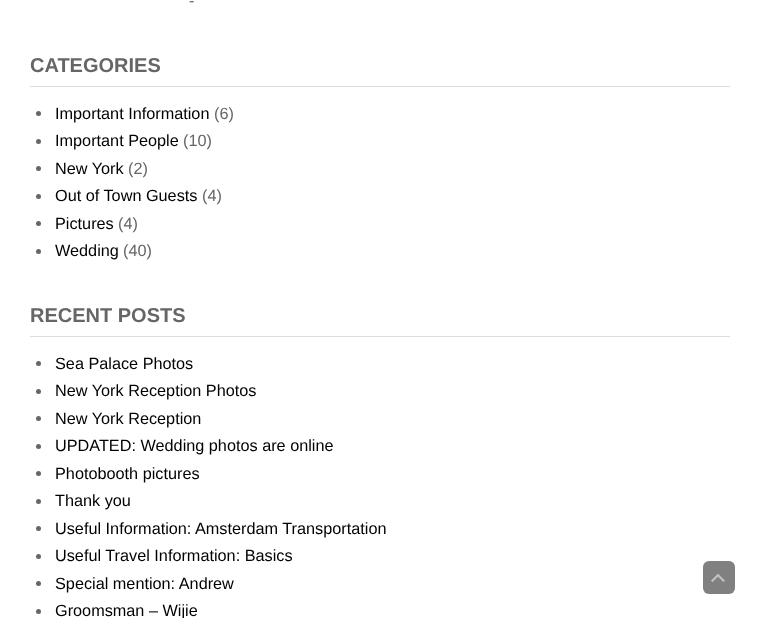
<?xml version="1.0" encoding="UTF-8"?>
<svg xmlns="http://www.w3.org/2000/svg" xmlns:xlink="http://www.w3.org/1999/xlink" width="759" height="618">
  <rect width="100%" height="100%" fill="#ffffff" />
  <rect x="30" y="86" width="700" height="1" fill="#dddddd" />
  <circle cx="38.5" cy="113.5" r="2.5" fill="#666666" />
  <circle cx="38.5" cy="141.5" r="2.5" fill="#666666" />
  <circle cx="38.5" cy="168.5" r="2.5" fill="#666666" />
  <circle cx="38.5" cy="196.5" r="2.5" fill="#666666" />
  <circle cx="38.5" cy="223.5" r="2.5" fill="#666666" />
  <circle cx="38.5" cy="251.5" r="2.5" fill="#666666" />
  <rect x="30" y="336" width="700" height="1" fill="#dddddd" />
  <circle cx="38.5" cy="363.5" r="2.5" fill="#666666" />
  <circle cx="38.5" cy="391.5" r="2.5" fill="#666666" />
  <circle cx="38.5" cy="418.5" r="2.5" fill="#666666" />
  <circle cx="38.5" cy="446.5" r="2.5" fill="#666666" />
  <circle cx="38.5" cy="473.5" r="2.5" fill="#666666" />
  <circle cx="38.5" cy="501.5" r="2.5" fill="#666666" />
  <circle cx="38.5" cy="528.5" r="2.5" fill="#666666" />
  <circle cx="38.5" cy="556.5" r="2.5" fill="#666666" />
  <circle cx="38.5" cy="583.5" r="2.5" fill="#666666" />
  <circle cx="38.5" cy="611.5" r="2.5" fill="#666666" />
  <rect x="703" y="561" width="32" height="33" rx="6" fill="#808080" />
  <image x="711" y="573" width="14" height="9" xlink:href="image1.png" />
  <text x="189" y="6" style="font-family: Liberation Sans; font-size: 16.25px; fill: #666666">-</text>
  <text x="30" y="72" style="font-family: Liberation Sans; font-size: 20px; font-weight: bold; fill: #666666">CATEGORIES</text>
  <text x="55" y="119" style="font-family: Liberation Sans; font-size: 16.25px; fill: #000000">Important Information</text>
  <text x="214" y="119" style="font-family: Liberation Sans; font-size: 16.25px; fill: #666666">(6)</text>
  <text x="55" y="146" style="font-family: Liberation Sans; font-size: 16.25px; fill: #000000">Important People</text>
  <text x="183" y="146" style="font-family: Liberation Sans; font-size: 16.25px; fill: #666666">(10)</text>
  <text x="55" y="174" style="font-family: Liberation Sans; font-size: 16.25px; fill: #000000">New York</text>
  <text x="128" y="174" style="font-family: Liberation Sans; font-size: 16.25px; fill: #666666">(2)</text>
  <text x="55" y="201" style="font-family: Liberation Sans; font-size: 16.25px; fill: #000000">Out of Town Guests</text>
  <text x="202" y="201" style="font-family: Liberation Sans; font-size: 16.25px; fill: #666666">(4)</text>
  <text x="55" y="229" style="font-family: Liberation Sans; font-size: 16.25px; fill: #000000">Pictures</text>
  <text x="118" y="229" style="font-family: Liberation Sans; font-size: 16.25px; fill: #666666">(4)</text>
  <text x="55" y="256" style="font-family: Liberation Sans; font-size: 16.25px; fill: #000000">Wedding</text>
  <text x="123" y="256" style="font-family: Liberation Sans; font-size: 16.25px; fill: #666666">(40)</text>
  <text x="30" y="322" style="font-family: Liberation Sans; font-size: 20px; font-weight: bold; fill: #666666">RECENT POSTS</text>
  <text x="55" y="369" style="font-family: Liberation Sans; font-size: 16.25px; fill: #000000">Sea Palace Photos</text>
  <text x="55" y="396" style="font-family: Liberation Sans; font-size: 16.25px; fill: #000000">New York Reception Photos</text>
  <text x="55" y="424" style="font-family: Liberation Sans; font-size: 16.25px; fill: #000000">New York Reception</text>
  <text x="55" y="451" style="font-family: Liberation Sans; font-size: 16.25px; fill: #000000">UPDATED: Wedding photos are online</text>
  <text x="55" y="479" style="font-family: Liberation Sans; font-size: 16.25px; fill: #000000">Photobooth pictures</text>
  <text x="55" y="506" style="font-family: Liberation Sans; font-size: 16.25px; fill: #000000">Thank you</text>
  <text x="55" y="534" style="font-family: Liberation Sans; font-size: 16.25px; fill: #000000">Useful Information: Amsterdam Transportation</text>
  <text x="55" y="561" style="font-family: Liberation Sans; font-size: 16.25px; fill: #000000">Useful Travel Information: Basics</text>
  <text x="55" y="589" style="font-family: Liberation Sans; font-size: 16.25px; fill: #000000">Special mention: Andrew</text>
  <text x="55" y="616" style="font-family: Liberation Sans; font-size: 16.25px; fill: #000000">Groomsman – Wijie</text>
</svg>
